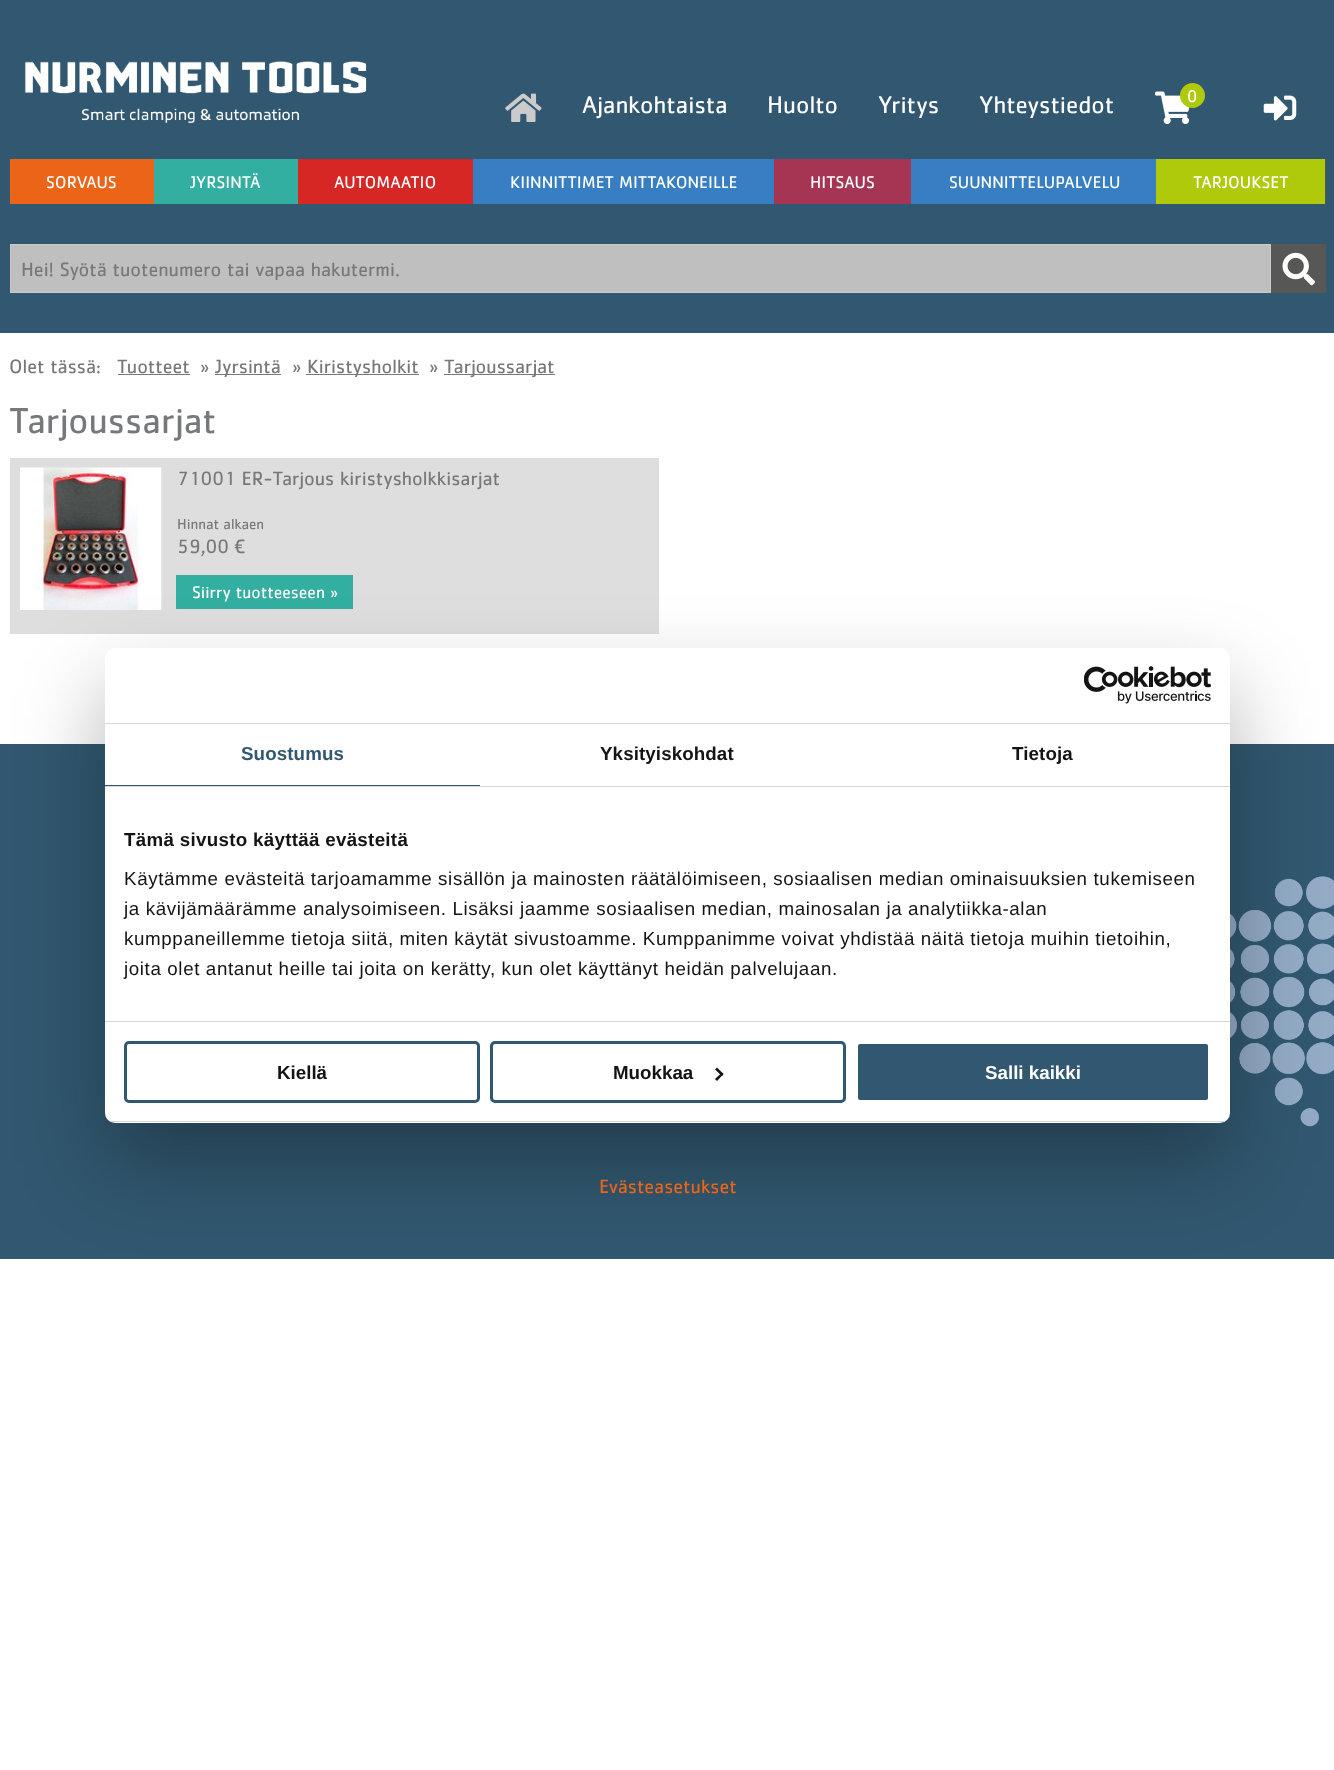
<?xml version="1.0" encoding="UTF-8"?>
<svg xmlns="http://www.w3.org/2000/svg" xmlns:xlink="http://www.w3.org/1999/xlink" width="1334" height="1770">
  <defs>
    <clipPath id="clip1"><rect x="105" y="648" width="1125" height="475" rx="10" /></clipPath>
  </defs>
  <rect width="100%" height="100%" fill="#ffffff" />
  <rect width="1334" height="333" fill="#315870" />
  <image x="24" y="61" width="343" height="63" xlink:href="image1.png" />
  <image x="505" y="93" width="37" height="29" xlink:href="image2.png" />
  <image x="1155" y="91" width="35" height="33" xlink:href="image3.png" />
  <circle cx="1192.5" cy="95.5" r="12.5" fill="#afca0b" />
  <image x="1263" y="95" width="34" height="26" xlink:href="image4.png" />
  <rect x="1325" y="159" width="1" height="45" fill="#575756" />
  <rect x="10" y="159" width="144" height="45" fill="#ec6417" />
  <rect x="154" y="159" width="144" height="45" fill="#33afa2" />
  <rect x="298" y="159" width="175" height="45" fill="#d62724" />
  <rect x="473" y="159" width="301" height="45" fill="#377ec2" />
  <rect x="774" y="159" width="137" height="45" fill="#a63554" />
  <rect x="911" y="159" width="245" height="45" fill="#377ec2" />
  <rect x="1156" y="159" width="169" height="45" fill="#afca0b" />
  <rect x="10.5" y="244.5" width="1260" height="48" fill="#bfbfbf" stroke="#cacaca" />
  <rect x="1271" y="244" width="55" height="49" fill="#575756" />
  <image x="1282" y="252" width="33" height="34" xlink:href="image5.png" />
  <rect x="118" y="374" width="72" height="1" fill="#77787b" />
  <rect x="215" y="374" width="66" height="1" fill="#77787b" />
  <rect x="306" y="374" width="113" height="1" fill="#77787b" />
  <rect x="444" y="374" width="111" height="1" fill="#77787b" />
  <rect x="10" y="458" width="649" height="176" fill="#dedede" />
  <image x="20" y="467" width="142" height="143" xlink:href="image6.png" />
  <rect x="176" y="575" width="177" height="34" fill="#33afa2" />
  <rect y="744" width="1334" height="515" fill="#315870" />
  <image x="1230" y="876" width="104" height="251" xlink:href="image8.png" />
  <rect x="105" y="688" width="1125" height="475" rx="10" fill="#000000" fill-opacity="0.3" filter="blur(42.5px)" />
  <rect x="105" y="648" width="1125" height="475" rx="10" fill="#ffffff" />
  <rect x="105" y="723" width="1125" height="1" fill="#d6d6d6" />
  <image x="1084" y="666" width="127" height="38" xlink:href="image7.png" />
  <rect x="105" y="786" width="1125" height="1" fill="#d6d6d6" />
  <rect x="105" y="785" width="375" height="1" fill="#315870" />
  <rect x="105" y="1021" width="1125" height="1" fill="#d6d6d6" />
  <g clip-path="url(#clip1)">
    <rect x="105" y="1121" width="1125" height="1" fill="#d6d6d6" />
  </g>
  <rect x="125.5" y="1042.5" width="353" height="59" rx="3.5" fill="none" stroke="#315870" stroke-width="3" />
  <rect x="491.5" y="1042.5" width="353" height="59" rx="3.5" fill="none" stroke="#315870" stroke-width="3" />
  <path d="M 717 1067.5 l 6.5 6.5 l -1.5 2 l -7 -6.5 z" fill="#141414" />
  <path d="M 722 1072.5 l 1.5 1.5 l -6.5 7 l -2 -2 z" fill="#141414" />
  <rect x="856.5" y="1042.5" width="353" height="59" rx="3.5" fill="#315870" stroke="#ffffff" stroke-width="3" />
  <text x="582" y="113" style="font-family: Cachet; font-size: 25px; fill: #fefefe">Ajankohtaista</text>
  <text x="767" y="113" style="font-family: Cachet; font-size: 25px; fill: #fefefe">Huolto</text>
  <text x="878" y="113" style="font-family: Cachet; font-size: 25px; fill: #fefefe">Yritys</text>
  <text x="979" y="113" style="font-family: Cachet; font-size: 25px; fill: #fefefe">Yhteystiedot</text>
  <text x="1187" y="102" style="font-family: Cachet; font-size: 17.5px; fill: #fefefe">0</text>
  <text x="46" y="188" style="font-family: Cachet; font-size: 17.5px; fill: #fefefe">SORVAUS</text>
  <text x="190" y="188" style="font-family: Cachet; font-size: 17.5px; fill: #fefefe">JYRSINTÄ</text>
  <text x="334" y="188" style="font-family: Cachet; font-size: 17.5px; fill: #fefefe">AUTOMAATIO</text>
  <text x="510" y="188" style="font-family: Cachet; font-size: 17.5px; fill: #fefefe">KIINNITTIMET MITTAKONEILLE</text>
  <text x="810" y="188" style="font-family: Cachet; font-size: 17.5px; fill: #fefefe">HITSAUS</text>
  <text x="949" y="188" style="font-family: Cachet; font-size: 17.5px; fill: #fefefe">SUUNNITTELUPALVELU</text>
  <text x="1193" y="188" style="font-family: Cachet; font-size: 17.5px; fill: #fefefe">TARJOUKSET</text>
  <text x="21" y="276" style="font-family: Cachet; font-size: 20px; fill: #77787b">Hei! Syötä tuotenumero tai vapaa hakutermi.</text>
  <text x="9" y="373" style="font-family: Cachet; font-size: 20px; fill: #77787b">Olet tässä:</text>
  <text x="117" y="373" style="font-family: Cachet; font-size: 20px; fill: #77787b">Tuotteet</text>
  <text x="200" y="373" style="font-family: Cachet; font-size: 20px; fill: #77787b">»</text>
  <text x="215" y="373" style="font-family: Cachet; font-size: 20px; fill: #77787b">Jyrsintä</text>
  <text x="292" y="373" style="font-family: Cachet; font-size: 20px; fill: #77787b">»</text>
  <text x="307" y="373" style="font-family: Cachet; font-size: 20px; fill: #77787b">Kiristysholkit</text>
  <text x="429" y="373" style="font-family: Cachet; font-size: 20px; fill: #77787b">»</text>
  <text x="444" y="373" style="font-family: Cachet; font-size: 20px; fill: #77787b">Tarjoussarjat</text>
  <text x="9" y="433" style="font-family: Cachet; font-size: 37.5px; fill: #77787b">Tarjoussarjat</text>
  <text x="177" y="485" style="font-family: Cachet; font-size: 20px; fill: #77787b">71001 ER-Tarjous kiristysholkkisarjat</text>
  <text x="177" y="529" style="font-family: Cachet; font-size: 15px; fill: #77787b">Hinnat alkaen</text>
  <text x="177" y="553" style="font-family: Cachet; font-size: 20px; fill: #77787b">59,00 €</text>
  <text x="192" y="598" style="font-family: Cachet; font-size: 17.5px; fill: #fefefe">Siirry tuotteeseen »</text>
  <text x="241" y="760" style="font-family: Liberation Sans; font-size: 18.75px; font-weight: bold; letter-spacing: 0.1px; fill: #315870">Suostumus</text>
  <text x="600" y="760" style="font-family: Liberation Sans; font-size: 18.75px; font-weight: bold; letter-spacing: 0.1px; fill: #141414">Yksityiskohdat</text>
  <text x="1012" y="760" style="font-family: Liberation Sans; font-size: 18.75px; font-weight: bold; letter-spacing: 0.1px; fill: #141414">Tietoja</text>
  <text x="124" y="846" style="font-family: Liberation Sans; font-size: 18.75px; font-weight: bold; letter-spacing: 0.3px; fill: #141414">Tämä sivusto käyttää evästeitä</text>
  <text x="124" y="885" style="font-family: Liberation Sans; font-size: 18.75px; letter-spacing: 0.62px; fill: #141414">Käytämme evästeitä tarjoamamme sisällön ja mainosten räätälöimiseen, sosiaalisen median ominaisuuksien tukemiseen</text>
  <text x="124" y="915" style="font-family: Liberation Sans; font-size: 18.75px; letter-spacing: 0.62px; fill: #141414">ja kävijämäärämme analysoimiseen. Lisäksi jaamme sosiaalisen median, mainosalan ja analytiikka-alan</text>
  <text x="124" y="945" style="font-family: Liberation Sans; font-size: 18.75px; letter-spacing: 0.62px; fill: #141414">kumppaneillemme tietoja siitä, miten käytät sivustoamme. Kumppanimme voivat yhdistää näitä tietoja muihin tietoihin,</text>
  <text x="124" y="975" style="font-family: Liberation Sans; font-size: 18.75px; letter-spacing: 0.62px; fill: #141414">joita olet antanut heille tai joita on kerätty, kun olet käyttänyt heidän palvelujaan.</text>
  <text x="277" y="1079" style="font-family: Liberation Sans; font-size: 18.75px; font-weight: bold; fill: #141414">Kiellä</text>
  <text x="613" y="1079" style="font-family: Liberation Sans; font-size: 18.75px; font-weight: bold; fill: #141414">Muokkaa</text>
  <text x="985" y="1079" style="font-family: Liberation Sans; font-size: 18.75px; font-weight: bold; fill: #fefefe">Salli kaikki</text>
  <text x="599" y="1193" style="font-family: Cachet; font-size: 20px; fill: #ec6417">Evästeasetukset</text>
</svg>
